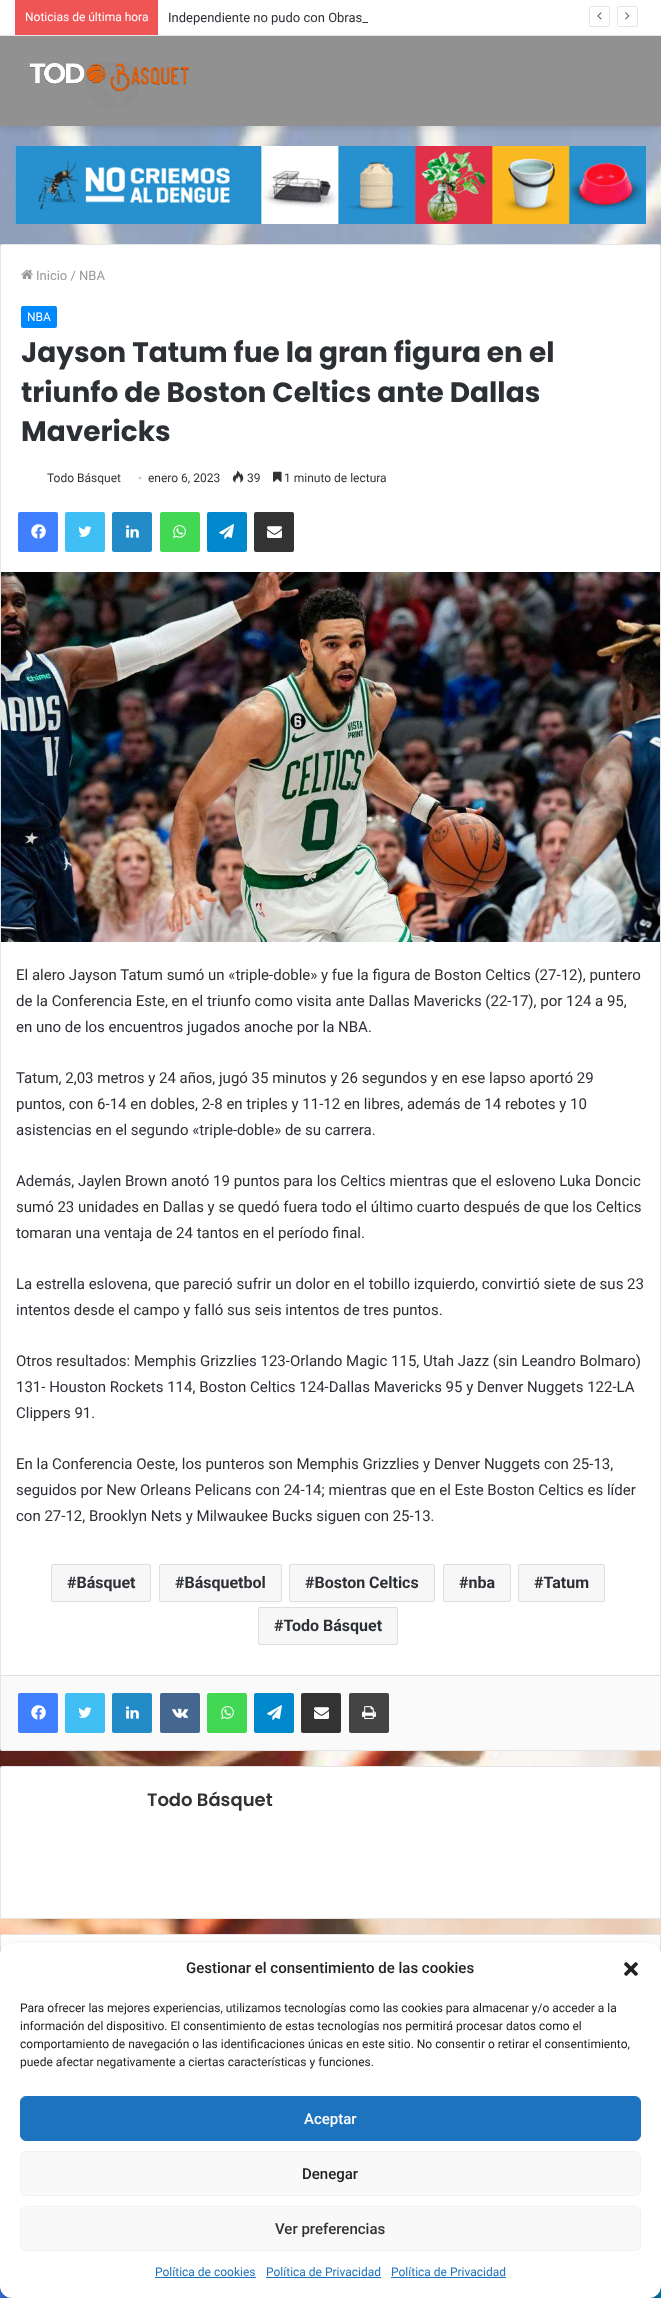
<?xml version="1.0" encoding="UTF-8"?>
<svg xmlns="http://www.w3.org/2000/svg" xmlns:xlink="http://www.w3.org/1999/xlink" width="661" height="2298">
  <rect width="100%" height="100%" fill="#ffffff" />
  <image x="0" y="126" width="661" height="1810" xlink:href="image1.png" />
  <rect y="39" width="661" height="90" fill="#000000" fill-opacity="0.1" filter="blur(3.5px)" />
  <rect y="35" width="661" height="1" fill="#e6e6e6" />
  <rect x="15" width="143" height="35" fill="#f05555" />
  <rect x="589.5" y="6.5" width="20" height="20" rx="1.5" fill="none" stroke="#e6e6e6" />
  <image x="597" y="12" width="5" height="8" xlink:href="image2.png" />
  <rect x="617.5" y="6.5" width="20" height="20" rx="1.5" fill="none" stroke="#e6e6e6" />
  <image x="625" y="12" width="5" height="8" xlink:href="image3.png" />
  <rect y="36" width="661" height="90" fill="#919191" />
  <image x="29" y="62" width="161" height="46" xlink:href="image4.png" />
  <image x="15" y="146" width="631" height="78" xlink:href="image5.png" />
  <rect y="244" width="661" height="1507" rx="2" fill="#ffffff" />
  <rect x="0.5" y="244.5" width="660" height="1506" rx="1.5" fill="none" stroke="#000000" stroke-opacity="0.1" />
  <image x="21" y="269" width="12" height="11" xlink:href="image6.png" />
  <rect x="21" y="306" width="36" height="22" rx="2" fill="#0088ff" />
  <image x="232" y="470" width="12" height="13" xlink:href="image7.png" />
  <image x="273" y="471" width="9" height="11" xlink:href="image8.png" />
  <rect x="18" y="512" width="40" height="40" rx="2" fill="#4080ff" />
  <image x="31" y="524" width="15" height="15" xlink:href="image9.png" />
  <rect x="65" y="512" width="40" height="40" rx="2" fill="#40bff5" />
  <image x="78" y="526" width="14" height="11" xlink:href="image10.png" />
  <rect x="112" y="512" width="40" height="40" rx="2" fill="#238cc8" />
  <image x="126" y="525" width="13" height="13" xlink:href="image11.png" />
  <rect x="160" y="512" width="40" height="40" rx="2" fill="#43d854" />
  <image x="173" y="525" width="13" height="13" xlink:href="image12.png" />
  <rect x="207" y="512" width="40" height="40" rx="2" fill="#0088cc" />
  <image x="219" y="524" width="15" height="15" xlink:href="image13.png" />
  <rect x="254" y="512" width="40" height="40" rx="2" fill="#333333" />
  <image x="267" y="526" width="15" height="12" xlink:href="image14.png" />
  <image x="1" y="572" width="659" height="370" xlink:href="image15.png" />
  <rect x="51.5" y="1564.5" width="99" height="37" rx="1.5" fill="#f7f7f7" stroke="#dedede" />
  <rect x="159.5" y="1564.5" width="122" height="37" rx="1.5" fill="#f7f7f7" stroke="#dedede" />
  <rect x="289.5" y="1564.5" width="145" height="37" rx="1.5" fill="#f7f7f7" stroke="#dedede" />
  <rect x="443.5" y="1564.5" width="67" height="37" rx="1.5" fill="#f7f7f7" stroke="#dedede" />
  <rect x="518.5" y="1564.5" width="86" height="37" rx="1.5" fill="#f7f7f7" stroke="#dedede" />
  <rect x="258.5" y="1607.5" width="139" height="37" rx="1.5" fill="#f7f7f7" stroke="#dedede" />
  <rect x="1" y="1676" width="659" height="74" fill="#fafafa" />
  <rect x="1" y="1675" width="659" height="1" fill="#e1e1e1" />
  <rect x="18" y="1693" width="40" height="40" rx="2" fill="#4080ff" />
  <image x="31" y="1705" width="15" height="15" xlink:href="image9.png" />
  <rect x="65" y="1693" width="40" height="40" rx="2" fill="#40bff5" />
  <image x="78" y="1707" width="14" height="11" xlink:href="image10.png" />
  <rect x="112" y="1693" width="40" height="40" rx="2" fill="#238cc8" />
  <image x="126" y="1706" width="13" height="13" xlink:href="image11.png" />
  <rect x="160" y="1693" width="40" height="40" rx="2" fill="#45668e" />
  <image x="172" y="1708" width="16" height="10" xlink:href="image16.png" />
  <rect x="207" y="1693" width="40" height="40" rx="2" fill="#43d854" />
  <image x="221" y="1706" width="13" height="13" xlink:href="image12.png" />
  <rect x="254" y="1693" width="40" height="40" rx="2" fill="#0088cc" />
  <image x="267" y="1705" width="15" height="15" xlink:href="image13.png" />
  <rect x="301" y="1693" width="40" height="40" rx="2" fill="#333333" />
  <image x="314" y="1707" width="15" height="12" xlink:href="image14.png" />
  <rect x="349" y="1693" width="40" height="40" rx="2" fill="#444444" />
  <image x="362" y="1706" width="14" height="13" xlink:href="image17.png" />
  <rect y="1766" width="661" height="153" rx="2" fill="#ffffff" />
  <rect x="0.5" y="1766.5" width="660" height="152" rx="1.5" fill="none" stroke="#000000" stroke-opacity="0.1" />
  <rect y="1934" width="661" height="298" rx="2" fill="#ffffff" />
  <rect x="0.5" y="1934.5" width="660" height="297" rx="1.5" fill="none" stroke="#000000" stroke-opacity="0.1" />
  <rect y="2286" width="12" height="12" fill="#4080ff" />
  <rect x="649" y="2286" width="12" height="12" fill="#0088cc" />
  <rect y="1949" width="661" height="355" rx="12" fill="#000000" fill-opacity="0.23" filter="blur(3px)" />
  <rect y="1953" width="661" height="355" rx="12" fill="#000000" fill-opacity="0.19" filter="blur(10px)" />
  <rect y="1943" width="661" height="355" rx="12" fill="#ffffff" />
  <image x="624" y="1962" width="14" height="14" xlink:href="image18.png" />
  <rect x="20.5" y="2096.5" width="620" height="44" rx="5.5" fill="#1e73be" stroke="#1e73be" />
  <rect x="20.5" y="2151.5" width="620" height="44" rx="5.5" fill="#f9f9f9" stroke="#f2f2f2" />
  <rect x="20.5" y="2206.5" width="620" height="44" rx="5.5" fill="#f9f9f9" stroke="#f2f2f2" />
  <rect x="155" y="2277" width="101" height="1" fill="#1e73be" />
  <rect x="266" y="2277" width="115" height="1" fill="#1e73be" />
  <rect x="391" y="2277" width="115" height="1" fill="#1e73be" />
  <text x="25" y="21" style="font-family: Roboto; font-size: 12px; fill: #ffffff">Noticias de última hora</text>
  <text x="168" y="22" style="font-family: Roboto; font-size: 13px; fill: #2c2f34">Independiente no pudo con Obras_</text>
  <rect x="362" y="19" width="1" height="2" fill="#ffffff" />
  <text x="36" y="280" style="font-family: Roboto; font-size: 13px; fill: #999999">Inicio / NBA</text>
  <text x="27" y="321" style="font-family: Roboto; font-size: 12px; fill: #ffffff">NBA</text>
  <text x="21" y="362" style="font-family: Poppins; font-size: 28px; font-weight: bold; fill: #2c2f34">Jayson Tatum fue la gran figura en el</text>
  <text x="21" y="402" style="font-family: Poppins; font-size: 28px; font-weight: bold; fill: #2c2f34">triunfo de Boston Celtics ante Dallas</text>
  <text x="21" y="441" style="font-family: Poppins; font-size: 28px; font-weight: bold; fill: #2c2f34">Mavericks</text>
  <text x="47" y="482" style="font-family: Roboto; font-size: 12px; fill: #333333">Todo Básquet</text>
  <text x="138" y="482" style="font-family: Liberation Serif; font-size: 12px; fill: #cccccc">•</text>
  <text x="148" y="482" style="font-family: Roboto; font-size: 12px; fill: #333333">enero 6, 2023</text>
  <text x="247" y="482" style="font-family: Roboto; font-size: 12px; fill: #333333">39</text>
  <text x="284" y="482" style="font-family: Roboto; font-size: 12px; fill: #333333">1 minuto de lectura</text>
  <text x="16" y="980" style="font-family: Roboto; font-size: 15px; fill: #2c2f34">El alero Jayson Tatum sumó un «triple-doble» y fue la figura de Boston Celtics (27-12), puntero</text>
  <text x="16" y="1006" style="font-family: Roboto; font-size: 15px; fill: #2c2f34">de la Conferencia Este, en el triunfo como visita ante Dallas Mavericks (22-17), por 124 a 95,</text>
  <text x="16" y="1032" style="font-family: Roboto; font-size: 15px; fill: #2c2f34">en uno de los encuentros jugados anoche por la NBA.</text>
  <text x="16" y="1083" style="font-family: Roboto; font-size: 15px; fill: #2c2f34">Tatum, 2,03 metros y 24 años, jugó 35 minutos y 26 segundos y en ese lapso aportó 29</text>
  <text x="16" y="1109" style="font-family: Roboto; font-size: 15px; fill: #2c2f34">puntos, con 6-14 en dobles, 2-8 en triples y 11-12 en libres, además de 14 rebotes y 10</text>
  <text x="16" y="1135" style="font-family: Roboto; font-size: 15px; fill: #2c2f34">asistencias en el segundo «triple-doble» de su carrera.</text>
  <text x="16" y="1186" style="font-family: Roboto; font-size: 15px; fill: #2c2f34">Además, Jaylen Brown anotó 19 puntos para los Celtics mientras que el esloveno Luka Doncic</text>
  <text x="16" y="1212" style="font-family: Roboto; font-size: 15px; fill: #2c2f34">sumó 23 unidades en Dallas y se quedó fuera todo el último cuarto después de que los Celtics</text>
  <text x="16" y="1238" style="font-family: Roboto; font-size: 15px; fill: #2c2f34">tomaran una ventaja de 24 tantos en el período final.</text>
  <text x="16" y="1289" style="font-family: Roboto; font-size: 15px; fill: #2c2f34">La estrella eslovena, que pareció sufrir un dolor en el tobillo izquierdo, convirtió siete de sus 23</text>
  <text x="16" y="1315" style="font-family: Roboto; font-size: 15px; fill: #2c2f34">intentos desde el campo y falló sus seis intentos de tres puntos.</text>
  <text x="16" y="1366" style="font-family: Roboto; font-size: 15px; fill: #2c2f34">Otros resultados: Memphis Grizzlies 123-Orlando Magic 115, Utah Jazz (sin Leandro Bolmaro)</text>
  <text x="16" y="1392" style="font-family: Roboto; font-size: 15px; fill: #2c2f34">131- Houston Rockets 114, Boston Celtics 124-Dallas Mavericks 95 y Denver Nuggets 122-LA</text>
  <text x="16" y="1418" style="font-family: Roboto; font-size: 15px; fill: #2c2f34">Clippers 91.</text>
  <text x="16" y="1469" style="font-family: Roboto; font-size: 15px; fill: #2c2f34">En la Conferencia Oeste, los punteros son Memphis Grizzlies y Denver Nuggets con 25-13,</text>
  <text x="16" y="1495" style="font-family: Roboto; font-size: 15px; fill: #2c2f34">seguidos por New Orleans Pelicans con 24-14; mientras que en el Este Boston Celtics es líder</text>
  <text x="16" y="1521" style="font-family: Roboto; font-size: 15px; fill: #2c2f34">con 27-12, Brooklyn Nets y Milwaukee Bucks siguen con 25-13.</text>
  <text x="67" y="1588" style="font-family: Roboto; font-size: 16px; font-weight: bold; fill: #2c2f34">#Básquet</text>
  <text x="175" y="1588" style="font-family: Roboto; font-size: 16px; font-weight: bold; fill: #2c2f34">#Básquetbol</text>
  <text x="305" y="1588" style="font-family: Roboto; font-size: 16px; font-weight: bold; fill: #2c2f34">#Boston Celtics</text>
  <text x="459" y="1588" style="font-family: Roboto; font-size: 16px; font-weight: bold; fill: #2c2f34">#nba</text>
  <text x="534" y="1588" style="font-family: Roboto; font-size: 16px; font-weight: bold; fill: #2c2f34">#Tatum</text>
  <text x="274" y="1631" style="font-family: Roboto; font-size: 16px; font-weight: bold; fill: #2c2f34">#Todo Básquet</text>
  <text x="147" y="1806" style="font-family: Poppins; font-size: 18px; font-weight: 600; fill: #333333">Todo Básquet</text>
  <text x="186" y="1973" style="font-family: Roboto; font-size: 15px; font-weight: 500; fill: #222222">Gestionar el consentimiento de las cookies</text>
  <text x="20" y="2012" style="font-family: Roboto; font-size: 12px; fill: #222222">Para ofrecer las mejores experiencias, utilizamos tecnologías como las cookies para almacenar y/o acceder a la</text>
  <text x="20" y="2030" style="font-family: Roboto; font-size: 12px; fill: #222222">información del dispositivo. El consentimiento de estas tecnologías nos permitirá procesar datos como el</text>
  <text x="20" y="2048" style="font-family: Roboto; font-size: 12px; fill: #222222">comportamiento de navegación o las identificaciones únicas en este sitio. No consentir o retirar el consentimiento,</text>
  <text x="20" y="2066" style="font-family: Roboto; font-size: 12px; fill: #222222">puede afectar negativamente a ciertas características y funciones.</text>
  <text x="304" y="2124" style="font-family: Roboto; font-size: 15px; font-weight: 500; fill: #ffffff">Aceptar</text>
  <text x="302" y="2179" style="font-family: Roboto; font-size: 15px; font-weight: 500; fill: #222222">Denegar</text>
  <text x="275" y="2234" style="font-family: Roboto; font-size: 15px; font-weight: 500; fill: #333333">Ver preferencias</text>
  <text x="155" y="2276" style="font-family: Roboto; font-size: 12px; fill: #1e73be">Política de cookies</text>
  <text x="266" y="2276" style="font-family: Roboto; font-size: 12px; fill: #1e73be">Política de Privacidad</text>
  <text x="391" y="2276" style="font-family: Roboto; font-size: 12px; fill: #1e73be">Política de Privacidad</text>
</svg>
